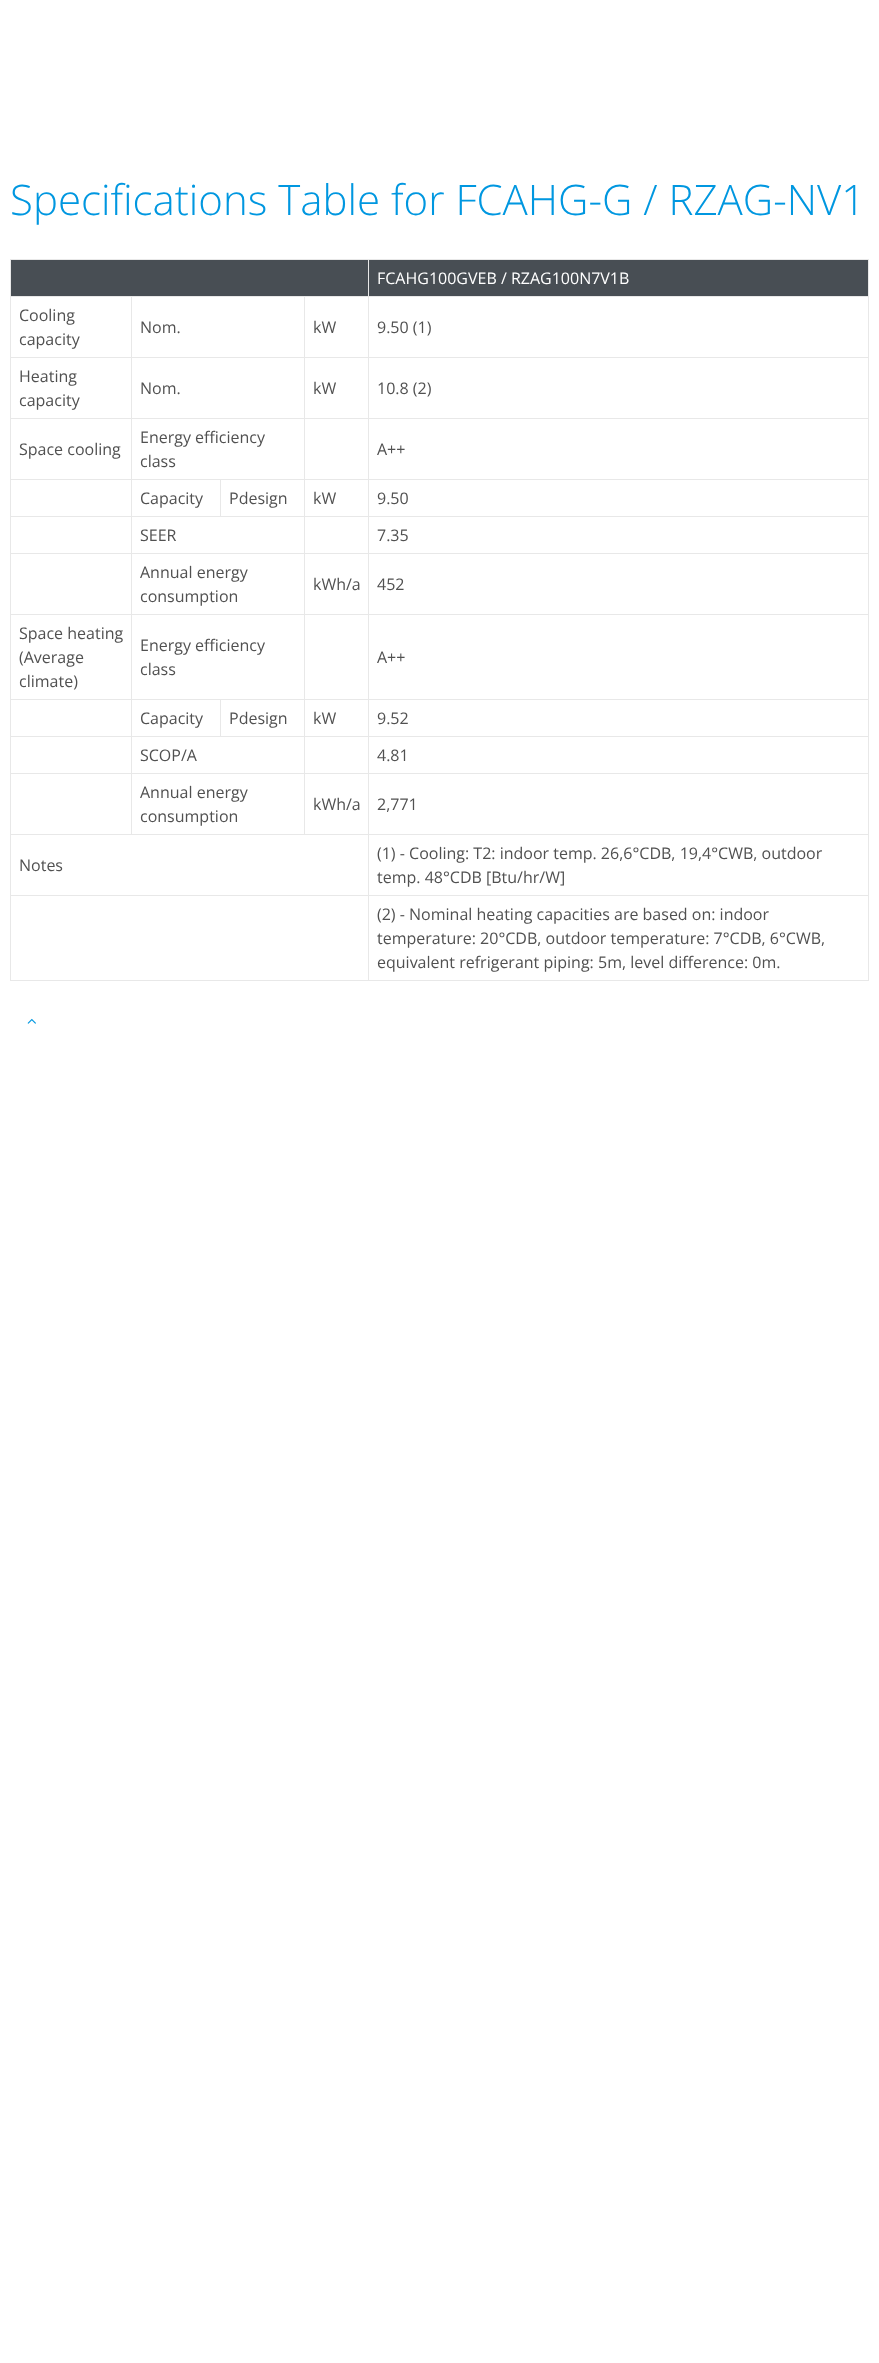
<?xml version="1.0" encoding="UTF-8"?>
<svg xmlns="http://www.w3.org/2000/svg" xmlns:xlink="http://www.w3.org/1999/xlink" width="879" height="2363">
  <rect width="100%" height="100%" fill="#ffffff" />
  <rect x="10" y="259" width="859" height="1" fill="#e8e8e8" />
  <rect x="868" y="259" width="1" height="722" fill="#e8e8e8" />
  <rect x="10" y="980" width="859" height="1" fill="#e8e8e8" />
  <rect x="10" y="259" width="1" height="722" fill="#e8e8e8" />
  <rect x="11" y="260" width="357" height="36" fill="#484e54" />
  <rect x="369" y="260" width="499" height="36" fill="#484e54" />
  <rect x="368" y="296" width="501" height="1" fill="#e8e8e8" />
  <rect x="368" y="357" width="501" height="1" fill="#e8e8e8" />
  <rect x="368" y="418" width="501" height="1" fill="#e8e8e8" />
  <rect x="368" y="479" width="501" height="1" fill="#e8e8e8" />
  <rect x="368" y="516" width="501" height="1" fill="#e8e8e8" />
  <rect x="368" y="553" width="501" height="1" fill="#e8e8e8" />
  <rect x="368" y="614" width="501" height="1" fill="#e8e8e8" />
  <rect x="368" y="699" width="501" height="1" fill="#e8e8e8" />
  <rect x="368" y="736" width="501" height="1" fill="#e8e8e8" />
  <rect x="368" y="773" width="501" height="1" fill="#e8e8e8" />
  <rect x="368" y="834" width="501" height="1" fill="#e8e8e8" />
  <rect x="368" y="895" width="501" height="1" fill="#e8e8e8" />
  <rect x="368" y="895" width="1" height="86" fill="#e8e8e8" />
  <rect x="10" y="895" width="359" height="1" fill="#e8e8e8" />
  <rect x="368" y="834" width="1" height="62" fill="#e8e8e8" />
  <rect x="10" y="834" width="359" height="1" fill="#e8e8e8" />
  <rect x="368" y="773" width="1" height="62" fill="#e8e8e8" />
  <rect x="304" y="773" width="65" height="1" fill="#e8e8e8" />
  <rect x="368" y="736" width="1" height="38" fill="#e8e8e8" />
  <rect x="304" y="736" width="65" height="1" fill="#e8e8e8" />
  <rect x="368" y="699" width="1" height="38" fill="#e8e8e8" />
  <rect x="304" y="699" width="65" height="1" fill="#e8e8e8" />
  <rect x="368" y="614" width="1" height="86" fill="#e8e8e8" />
  <rect x="304" y="614" width="65" height="1" fill="#e8e8e8" />
  <rect x="368" y="553" width="1" height="62" fill="#e8e8e8" />
  <rect x="304" y="553" width="65" height="1" fill="#e8e8e8" />
  <rect x="368" y="516" width="1" height="38" fill="#e8e8e8" />
  <rect x="304" y="516" width="65" height="1" fill="#e8e8e8" />
  <rect x="368" y="479" width="1" height="38" fill="#e8e8e8" />
  <rect x="304" y="479" width="65" height="1" fill="#e8e8e8" />
  <rect x="368" y="418" width="1" height="62" fill="#e8e8e8" />
  <rect x="304" y="418" width="65" height="1" fill="#e8e8e8" />
  <rect x="368" y="357" width="1" height="62" fill="#e8e8e8" />
  <rect x="304" y="357" width="65" height="1" fill="#e8e8e8" />
  <rect x="368" y="296" width="1" height="62" fill="#e8e8e8" />
  <rect x="304" y="296" width="65" height="1" fill="#e8e8e8" />
  <rect x="368" y="259" width="1" height="38" fill="#e8e8e8" />
  <rect x="304" y="773" width="1" height="62" fill="#e8e8e8" />
  <rect x="131" y="773" width="174" height="1" fill="#e8e8e8" />
  <rect x="304" y="736" width="1" height="38" fill="#e8e8e8" />
  <rect x="131" y="736" width="174" height="1" fill="#e8e8e8" />
  <rect x="304" y="699" width="1" height="38" fill="#e8e8e8" />
  <rect x="220" y="699" width="85" height="1" fill="#e8e8e8" />
  <rect x="304" y="614" width="1" height="86" fill="#e8e8e8" />
  <rect x="131" y="614" width="174" height="1" fill="#e8e8e8" />
  <rect x="304" y="553" width="1" height="62" fill="#e8e8e8" />
  <rect x="131" y="553" width="174" height="1" fill="#e8e8e8" />
  <rect x="304" y="516" width="1" height="38" fill="#e8e8e8" />
  <rect x="131" y="516" width="174" height="1" fill="#e8e8e8" />
  <rect x="304" y="479" width="1" height="38" fill="#e8e8e8" />
  <rect x="220" y="479" width="85" height="1" fill="#e8e8e8" />
  <rect x="304" y="418" width="1" height="62" fill="#e8e8e8" />
  <rect x="131" y="418" width="174" height="1" fill="#e8e8e8" />
  <rect x="304" y="357" width="1" height="62" fill="#e8e8e8" />
  <rect x="131" y="357" width="174" height="1" fill="#e8e8e8" />
  <rect x="304" y="296" width="1" height="62" fill="#e8e8e8" />
  <rect x="131" y="296" width="174" height="1" fill="#e8e8e8" />
  <rect x="220" y="479" width="1" height="38" fill="#e8e8e8" />
  <rect x="131" y="479" width="90" height="1" fill="#e8e8e8" />
  <rect x="220" y="699" width="1" height="38" fill="#e8e8e8" />
  <rect x="131" y="699" width="90" height="1" fill="#e8e8e8" />
  <rect x="131" y="773" width="1" height="62" fill="#e8e8e8" />
  <rect x="10" y="773" width="122" height="1" fill="#e8e8e8" />
  <rect x="131" y="736" width="1" height="38" fill="#e8e8e8" />
  <rect x="10" y="736" width="122" height="1" fill="#e8e8e8" />
  <rect x="131" y="699" width="1" height="38" fill="#e8e8e8" />
  <rect x="10" y="699" width="122" height="1" fill="#e8e8e8" />
  <rect x="131" y="614" width="1" height="86" fill="#e8e8e8" />
  <rect x="10" y="614" width="122" height="1" fill="#e8e8e8" />
  <rect x="131" y="553" width="1" height="62" fill="#e8e8e8" />
  <rect x="10" y="553" width="122" height="1" fill="#e8e8e8" />
  <rect x="131" y="516" width="1" height="38" fill="#e8e8e8" />
  <rect x="10" y="516" width="122" height="1" fill="#e8e8e8" />
  <rect x="131" y="479" width="1" height="38" fill="#e8e8e8" />
  <rect x="10" y="479" width="122" height="1" fill="#e8e8e8" />
  <rect x="131" y="418" width="1" height="62" fill="#e8e8e8" />
  <rect x="10" y="418" width="122" height="1" fill="#e8e8e8" />
  <rect x="131" y="357" width="1" height="62" fill="#e8e8e8" />
  <rect x="10" y="357" width="122" height="1" fill="#e8e8e8" />
  <rect x="131" y="296" width="1" height="62" fill="#e8e8e8" />
  <rect x="10" y="296" width="122" height="1" fill="#e8e8e8" />
  <image x="27" y="1018" width="9" height="6" xlink:href="image1.png" />
  <text x="10" y="215" style="font-family: Open Sans; font-size: 42px; font-weight: 300; fill: #0097e0">Specifications Table for FCAHG-G / RZAG-NV1</text>
  <text x="377" y="284" style="font-family: Open Sans; font-size: 16px; fill: #ffffff">FCAHG100GVEB / RZAG100N7V1B</text>
  <text x="19" y="321" style="font-family: Open Sans; font-size: 16px; fill: #515151">Cooling</text>
  <text x="19" y="345" style="font-family: Open Sans; font-size: 16px; fill: #515151">capacity</text>
  <text x="140" y="333" style="font-family: Open Sans; font-size: 16px; fill: #515151">Nom.</text>
  <text x="313" y="333" style="font-family: Open Sans; font-size: 16px; fill: #515151">kW</text>
  <text x="377" y="333" style="font-family: Open Sans; font-size: 16px; fill: #515151">9.50 (1)</text>
  <text x="19" y="382" style="font-family: Open Sans; font-size: 16px; fill: #515151">Heating</text>
  <text x="19" y="406" style="font-family: Open Sans; font-size: 16px; fill: #515151">capacity</text>
  <text x="140" y="394" style="font-family: Open Sans; font-size: 16px; fill: #515151">Nom.</text>
  <text x="313" y="394" style="font-family: Open Sans; font-size: 16px; fill: #515151">kW</text>
  <text x="377" y="394" style="font-family: Open Sans; font-size: 16px; fill: #515151">10.8 (2)</text>
  <text x="19" y="455" style="font-family: Open Sans; font-size: 16px; fill: #515151">Space cooling</text>
  <text x="140" y="443" style="font-family: Open Sans; font-size: 16px; fill: #515151">Energy efficiency</text>
  <text x="140" y="467" style="font-family: Open Sans; font-size: 16px; fill: #515151">class</text>
  <text x="377" y="455" style="font-family: Open Sans; font-size: 16px; fill: #515151">A++</text>
  <text x="140" y="504" style="font-family: Open Sans; font-size: 16px; fill: #515151">Capacity</text>
  <text x="229" y="504" style="font-family: Open Sans; font-size: 16px; fill: #515151">Pdesign</text>
  <text x="313" y="504" style="font-family: Open Sans; font-size: 16px; fill: #515151">kW</text>
  <text x="377" y="504" style="font-family: Open Sans; font-size: 16px; fill: #515151">9.50</text>
  <text x="140" y="541" style="font-family: Open Sans; font-size: 16px; fill: #515151">SEER</text>
  <text x="377" y="541" style="font-family: Open Sans; font-size: 16px; fill: #515151">7.35</text>
  <text x="140" y="578" style="font-family: Open Sans; font-size: 16px; fill: #515151">Annual energy</text>
  <text x="140" y="602" style="font-family: Open Sans; font-size: 16px; fill: #515151">consumption</text>
  <text x="313" y="590" style="font-family: Open Sans; font-size: 16px; fill: #515151">kWh/a</text>
  <text x="377" y="590" style="font-family: Open Sans; font-size: 16px; fill: #515151">452</text>
  <text x="19" y="639" style="font-family: Open Sans; font-size: 16px; fill: #515151">Space heating</text>
  <text x="19" y="663" style="font-family: Open Sans; font-size: 16px; fill: #515151">(Average</text>
  <text x="19" y="687" style="font-family: Open Sans; font-size: 16px; fill: #515151">climate)</text>
  <text x="140" y="651" style="font-family: Open Sans; font-size: 16px; fill: #515151">Energy efficiency</text>
  <text x="140" y="675" style="font-family: Open Sans; font-size: 16px; fill: #515151">class</text>
  <text x="377" y="663" style="font-family: Open Sans; font-size: 16px; fill: #515151">A++</text>
  <text x="140" y="724" style="font-family: Open Sans; font-size: 16px; fill: #515151">Capacity</text>
  <text x="229" y="724" style="font-family: Open Sans; font-size: 16px; fill: #515151">Pdesign</text>
  <text x="313" y="724" style="font-family: Open Sans; font-size: 16px; fill: #515151">kW</text>
  <text x="377" y="724" style="font-family: Open Sans; font-size: 16px; fill: #515151">9.52</text>
  <text x="140" y="761" style="font-family: Open Sans; font-size: 16px; fill: #515151">SCOP/A</text>
  <text x="377" y="761" style="font-family: Open Sans; font-size: 16px; fill: #515151">4.81</text>
  <text x="140" y="798" style="font-family: Open Sans; font-size: 16px; fill: #515151">Annual energy</text>
  <text x="140" y="822" style="font-family: Open Sans; font-size: 16px; fill: #515151">consumption</text>
  <text x="313" y="810" style="font-family: Open Sans; font-size: 16px; fill: #515151">kWh/a</text>
  <text x="377" y="810" style="font-family: Open Sans; font-size: 16px; fill: #515151">2,771</text>
  <text x="19" y="871" style="font-family: Open Sans; font-size: 16px; fill: #515151">Notes</text>
  <text x="377" y="859" style="font-family: Open Sans; font-size: 16px; fill: #515151">(1) - Cooling: T2: indoor temp. 26,6°CDB, 19,4°CWB, outdoor</text>
  <text x="377" y="883" style="font-family: Open Sans; font-size: 16px; fill: #515151">temp. 48°CDB [Btu/hr/W]</text>
  <text x="377" y="920" style="font-family: Open Sans; font-size: 16px; fill: #515151">(2) - Nominal heating capacities are based on: indoor</text>
  <text x="377" y="944" style="font-family: Open Sans; font-size: 16px; fill: #515151">temperature: 20°CDB, outdoor temperature: 7°CDB, 6°CWB,</text>
  <text x="377" y="968" style="font-family: Open Sans; font-size: 16px; fill: #515151">equivalent refrigerant piping: 5m, level difference: 0m.</text>
</svg>
